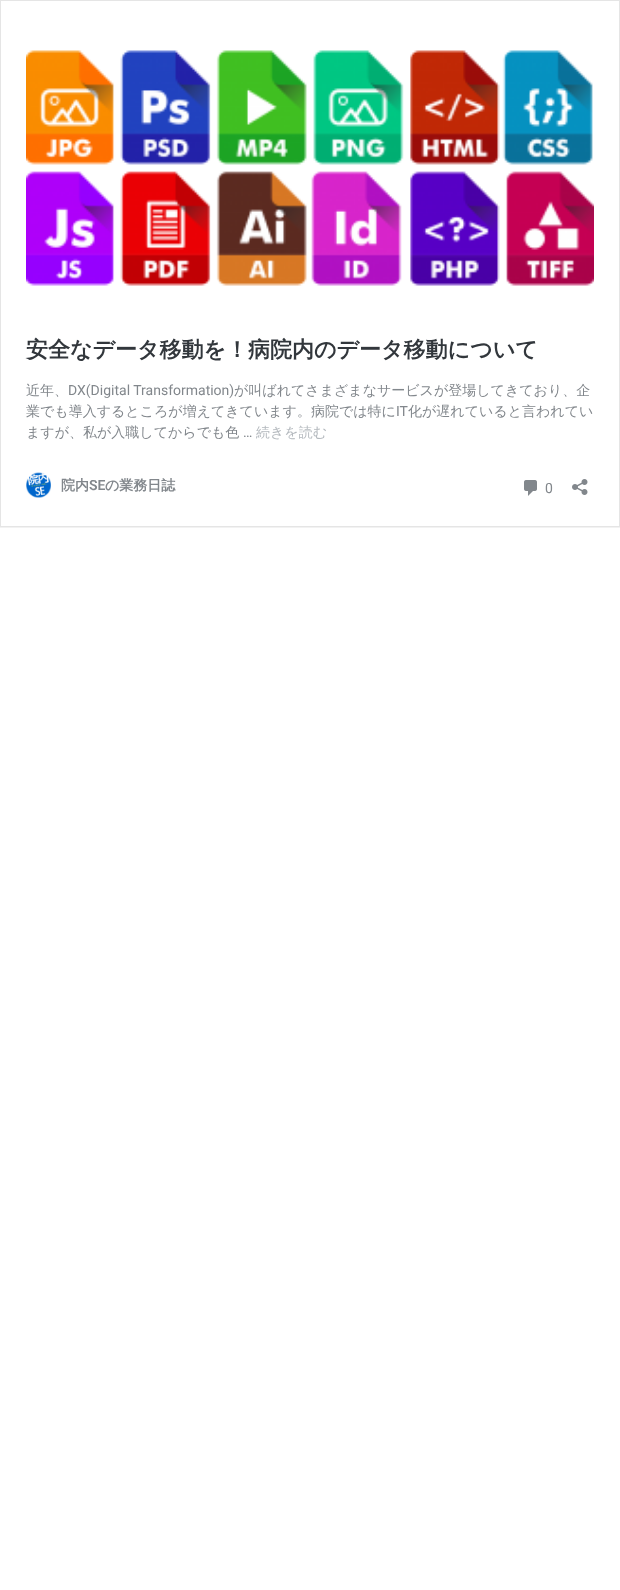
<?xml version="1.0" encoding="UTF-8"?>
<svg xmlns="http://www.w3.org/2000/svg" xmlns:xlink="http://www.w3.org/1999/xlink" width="620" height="1590">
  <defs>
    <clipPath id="clip1"><rect x="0" y="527" width="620" height="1" /></clipPath>
  </defs>
  <rect width="100%" height="100%" fill="#ffffff" />
  <g clip-path="url(#clip1)">
    <rect y="1" width="620" height="527" fill="#000000" fill-opacity="0.05" filter="blur(0.5px)" />
  </g>
  <rect x="0.5" y="0.5" width="619" height="526" fill="none" stroke="#e5e5e5" />
  <image x="26" y="50" width="568" height="236" xlink:href="image1.png" />
  <image x="26" y="472" width="25" height="26" xlink:href="image2.png" />
  <image x="524" y="480" width="13" height="16" xlink:href="image3.png" />
  <image x="572" y="479" width="16" height="16" xlink:href="image4.png" />
  <text x="26" y="357" style="font-family: WenQuanYi Zen Hei; font-size: 22px; font-weight: bold; fill: #32373c">安全なデータ移動を！病院内のデータ移動について</text>
  <text x="26" y="395" style="font-family: WenQuanYi Zen Hei; font-size: 14px; font-weight: 500; fill: #82878c">近年、</text>
  <text x="68" y="395" style="font-family: Roboto; font-size: 14px; fill: #82878c">DX(Digital Transformation)</text>
  <text x="234" y="395" style="font-family: WenQuanYi Zen Hei; font-size: 14px; font-weight: 500; fill: #82878c">が叫ばれてさまざまなサービスが登場してきており、企</text>
  <text x="26" y="416" style="font-family: WenQuanYi Zen Hei; font-size: 14px; font-weight: 500; fill: #82878c">業でも導入するところが増えてきています。病院では特に</text>
  <text x="396" y="416" style="font-family: Roboto; font-size: 14px; fill: #82878c">IT</text>
  <text x="408" y="416" style="font-family: WenQuanYi Zen Hei; font-size: 14px; font-weight: 500; fill: #82878c">化が遅れていると言われてい</text>
  <text x="26" y="437" style="font-family: WenQuanYi Zen Hei; font-size: 14px; font-weight: 500; fill: #82878c">ますが、私が入職してからでも色</text>
  <text x="243" y="437" style="font-family: Roboto; font-size: 14px; fill: #82878c">…</text>
  <text x="256" y="437" style="font-family: WenQuanYi Zen Hei; font-size: 14px; font-weight: 500; fill: #b4b9be">続きを読む</text>
  <text x="61" y="490" style="font-family: WenQuanYi Zen Hei; font-size: 14px; font-weight: bold; fill: #82878c">院内</text>
  <text x="89" y="490" style="font-family: Roboto; font-size: 14px; font-weight: 600; fill: #82878c">SE</text>
  <text x="105" y="490" style="font-family: WenQuanYi Zen Hei; font-size: 14px; font-weight: bold; fill: #82878c">の業務日誌</text>
  <text x="545" y="493" style="font-family: Roboto; font-size: 14px; fill: #82878c">0</text>
</svg>
